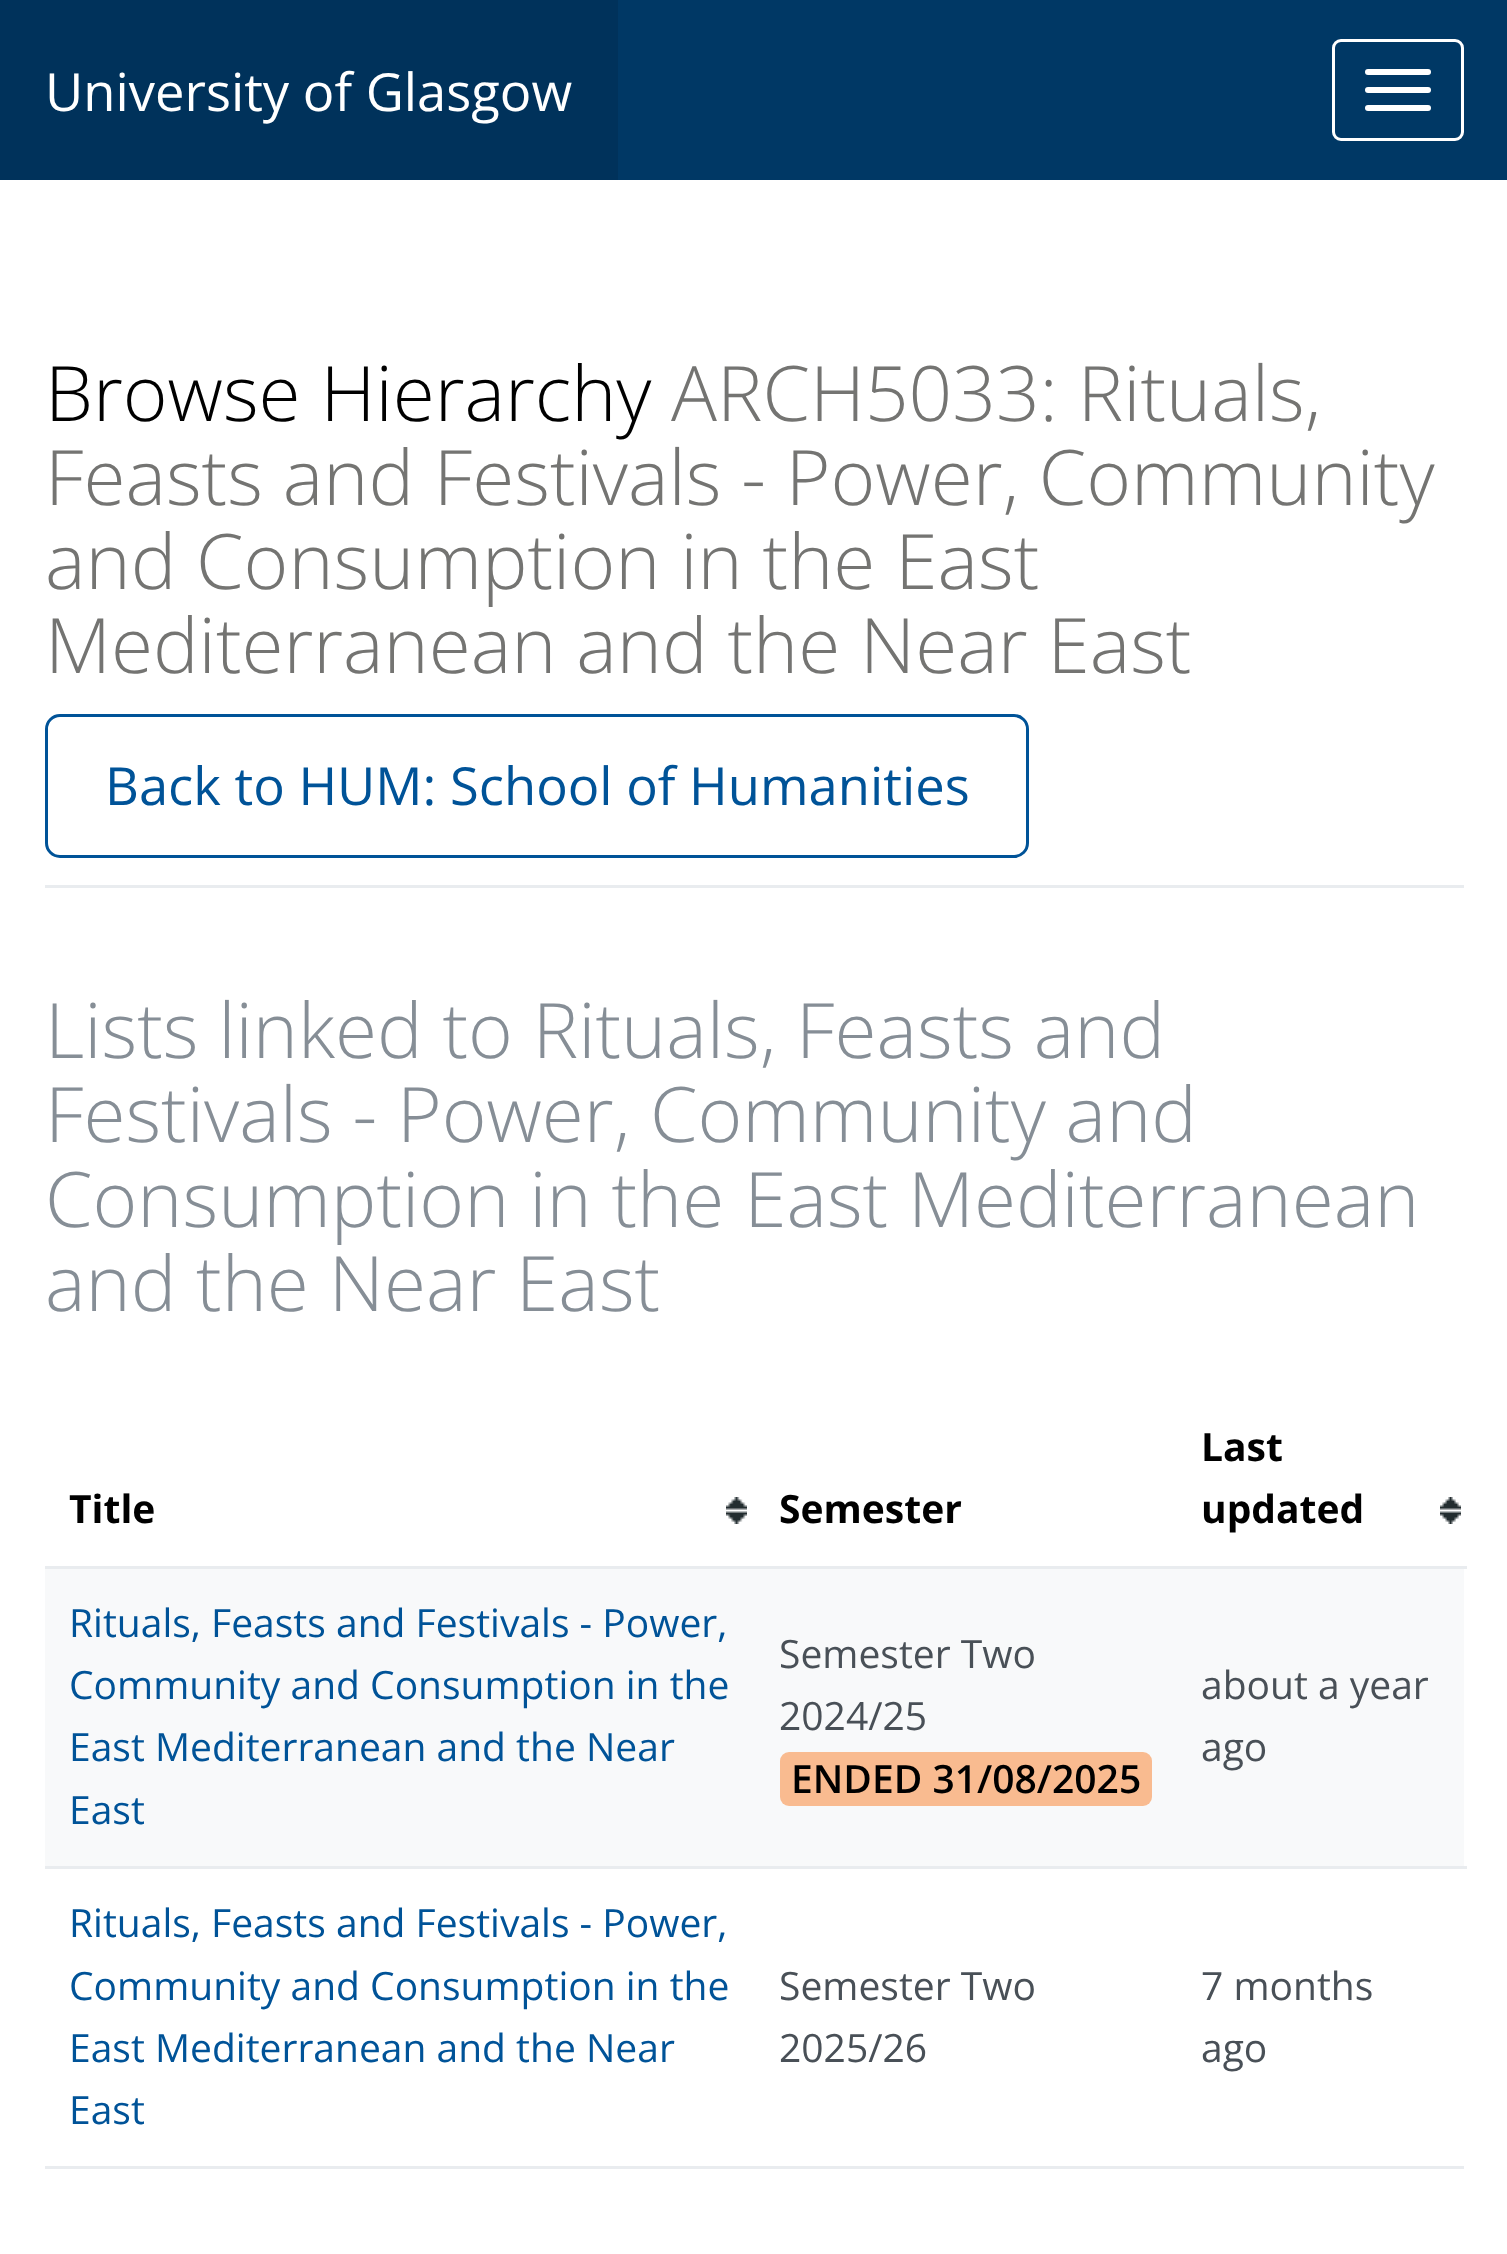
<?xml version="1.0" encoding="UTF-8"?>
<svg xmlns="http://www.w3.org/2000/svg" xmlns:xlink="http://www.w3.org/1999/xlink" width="1507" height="2254">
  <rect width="100%" height="100%" fill="#ffffff" />
  <rect x="618" width="889" height="180" fill="#003865" />
  <rect width="618" height="180" fill="#00325b" />
  <rect x="1333.5" y="40.5" width="129" height="99" rx="7.5" fill="none" stroke="#ffffff" stroke-width="3" />
  <rect x="1365" y="69" width="66" height="6" rx="3" fill="#ffffff" />
  <rect x="1365" y="87" width="66" height="6" rx="3" fill="#ffffff" />
  <rect x="1365" y="105" width="66" height="6" rx="3" fill="#ffffff" />
  <rect x="45" y="885" width="1419" height="3" fill="#e9ecef" />
  <rect x="46.5" y="715.5" width="981" height="141" rx="13.5" fill="none" stroke="#005398" stroke-width="3" />
  <rect x="45" y="2166" width="1419" height="3" fill="#e9ecef" />
  <image x="726" y="1497" width="21" height="27" xlink:href="image1.png" />
  <image x="1440" y="1497" width="21" height="27" xlink:href="image2.png" />
  <rect x="45" y="1569" width="1419" height="297" fill="#f8f9fa" />
  <rect x="780" y="1752" width="372" height="54" rx="9" fill="#f9bb90" />
  <rect x="45" y="1566" width="1422" height="3" fill="#e9ecef" />
  <rect x="45" y="1866" width="1422" height="3" fill="#e9ecef" />
  <text x="45" y="111" style="font-family: Open Sans; font-size: 52.5px; fill: #ffffff">University of Glasgow</text>
  <text x="45" y="421" style="font-family: Open Sans; font-size: 76.5px; font-weight: 300; fill: #000000">Browse Hierarchy</text>
  <text x="671" y="421" style="font-family: Open Sans; font-size: 76.5px; font-weight: 300; fill: #747472">ARCH5033: Rituals,</text>
  <text x="45" y="505" style="font-family: Open Sans; font-size: 76.5px; font-weight: 300; fill: #747472">Feasts and Festivals - Power, Community</text>
  <text x="45" y="589" style="font-family: Open Sans; font-size: 76.5px; font-weight: 300; fill: #747472">and Consumption in the East</text>
  <text x="45" y="673" style="font-family: Open Sans; font-size: 76.5px; font-weight: 300; fill: #747472">Mediterranean and the Near East</text>
  <text x="105" y="805" style="font-family: Open Sans; font-size: 52.5px; fill: #005398">Back to HUM: School of Humanities</text>
  <text x="45" y="1058" style="font-family: Open Sans; font-size: 76.5px; font-weight: 300; fill: #868e96">Lists linked to Rituals, Feasts and</text>
  <text x="45" y="1142" style="font-family: Open Sans; font-size: 76.5px; font-weight: 300; fill: #868e96">Festivals - Power, Community and</text>
  <text x="45" y="1227" style="font-family: Open Sans; font-size: 76.5px; font-weight: 300; fill: #868e96">Consumption in the East Mediterranean</text>
  <text x="45" y="1311" style="font-family: Open Sans; font-size: 76.5px; font-weight: 300; fill: #868e96">and the Near East</text>
  <text x="69" y="1523" style="font-family: Open Sans; font-size: 39px; font-weight: bold; fill: #000000">Title</text>
  <text x="779" y="1523" style="font-family: Open Sans; font-size: 39px; font-weight: bold; fill: #000000">Semester</text>
  <text x="1201" y="1461" style="font-family: Open Sans; font-size: 39px; font-weight: bold; fill: #000000">Last</text>
  <text x="1201" y="1523" style="font-family: Open Sans; font-size: 39px; font-weight: bold; fill: #000000">updated</text>
  <text x="69" y="1637" style="font-family: Open Sans; font-size: 39px; fill: #005398">Rituals, Feasts and Festivals - Power,</text>
  <text x="69" y="1699" style="font-family: Open Sans; font-size: 39px; fill: #005398">Community and Consumption in the</text>
  <text x="69" y="1761" style="font-family: Open Sans; font-size: 39px; fill: #005398">East Mediterranean and the Near</text>
  <text x="69" y="1824" style="font-family: Open Sans; font-size: 39px; fill: #005398">East</text>
  <text x="779" y="1668" style="font-family: Open Sans; font-size: 39px; fill: #495057">Semester Two</text>
  <text x="779" y="1730" style="font-family: Open Sans; font-size: 39px; fill: #495057">2024/25</text>
  <text x="791" y="1793" style="font-family: Open Sans; font-size: 39px; font-weight: 600; fill: #000000">ENDED 31/08/2025</text>
  <text x="1201" y="1699" style="font-family: Open Sans; font-size: 39px; fill: #495057">about a year</text>
  <text x="1201" y="1761" style="font-family: Open Sans; font-size: 39px; fill: #495057">ago</text>
  <text x="69" y="1937" style="font-family: Open Sans; font-size: 39px; fill: #005398">Rituals, Feasts and Festivals - Power,</text>
  <text x="69" y="2000" style="font-family: Open Sans; font-size: 39px; fill: #005398">Community and Consumption in the</text>
  <text x="69" y="2062" style="font-family: Open Sans; font-size: 39px; fill: #005398">East Mediterranean and the Near</text>
  <text x="69" y="2124" style="font-family: Open Sans; font-size: 39px; fill: #005398">East</text>
  <text x="779" y="2000" style="font-family: Open Sans; font-size: 39px; fill: #495057">Semester Two</text>
  <text x="779" y="2062" style="font-family: Open Sans; font-size: 39px; fill: #495057">2025/26</text>
  <text x="1201" y="2000" style="font-family: Open Sans; font-size: 39px; fill: #495057">7 months</text>
  <text x="1201" y="2062" style="font-family: Open Sans; font-size: 39px; fill: #495057">ago</text>
</svg>
